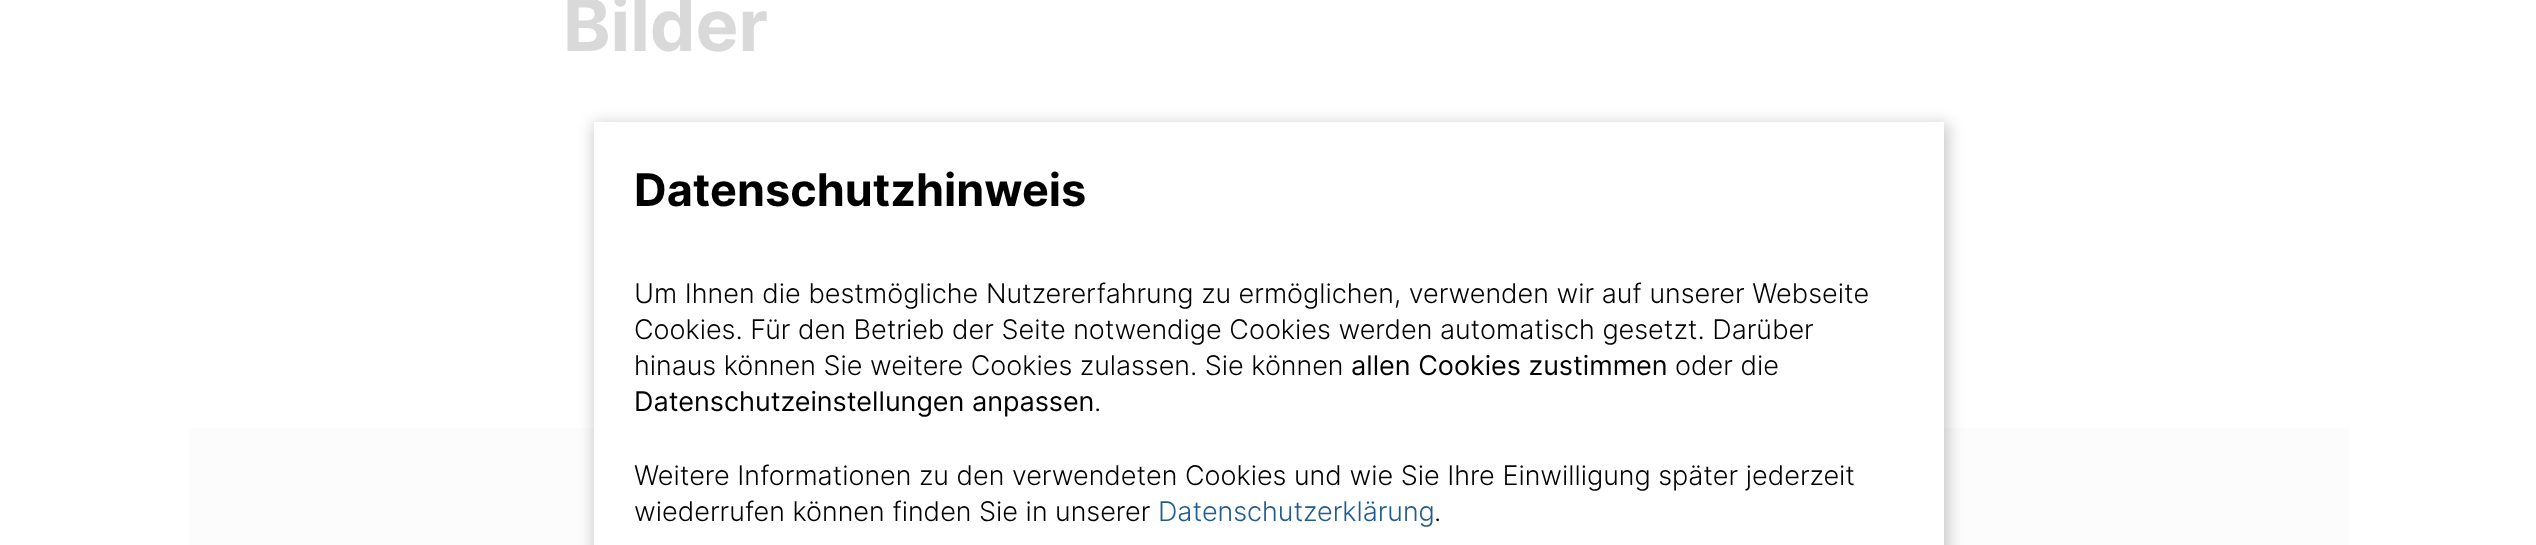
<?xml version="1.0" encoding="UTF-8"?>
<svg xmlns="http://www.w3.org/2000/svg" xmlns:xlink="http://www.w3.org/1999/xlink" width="2536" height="545">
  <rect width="100%" height="100%" fill="#ffffff" />
  <rect x="189" y="428" width="2160" height="117" fill="#fcfcfc" />
  <rect x="593" y="123" width="1356" height="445" fill="#000000" fill-opacity="0.2" filter="blur(7.5px)" />
  <rect x="594" y="122" width="1350" height="423" fill="#ffffff" />
  <text x="563" y="51" style="font-family: Inter; font-size: 72px; font-weight: bold; fill: #d9d9d9">Bilder</text>
  <text x="634" y="206" style="font-family: Inter; font-size: 45px; font-weight: bold; fill: #000000">Datenschutzhinweis</text>
  <text x="634" y="303" style="font-family: Inter; font-size: 27px; font-weight: 300; fill: #000000">Um Ihnen die bestmögliche Nutzererfahrung zu ermöglichen, verwenden wir auf unserer Webseite</text>
  <text x="634" y="339" style="font-family: Inter; font-size: 27px; font-weight: 300; fill: #000000">Cookies. Für den Betrieb der Seite notwendige Cookies werden automatisch gesetzt. Darüber</text>
  <text x="634" y="375" style="font-family: Inter; font-size: 27px; font-weight: 300; fill: #000000">hinaus können Sie weitere Cookies zulassen. Sie können</text>
  <text x="1351" y="375" style="font-family: Inter; font-size: 27px; fill: #000000">allen Cookies zustimmen</text>
  <text x="1675" y="375" style="font-family: Inter; font-size: 27px; font-weight: 300; fill: #000000">oder die</text>
  <text x="634" y="411" style="font-family: Inter; font-size: 27px; fill: #000000">Datenschutzeinstellungen anpassen</text>
  <text x="1094" y="411" style="font-family: Inter; font-size: 27px; font-weight: 300; fill: #000000">.</text>
  <text x="634" y="485" style="font-family: Inter; font-size: 27px; font-weight: 300; fill: #000000">Weitere Informationen zu den verwendeten Cookies und wie Sie Ihre Einwilligung später jederzeit</text>
  <text x="634" y="521" style="font-family: Inter; font-size: 27px; font-weight: 300; fill: #000000">wiederrufen können finden Sie in unserer</text>
  <text x="1158" y="521" style="font-family: Inter; font-size: 27px; font-weight: 300; fill: #205c90">Datenschutzerklärung</text>
  <text x="1434" y="521" style="font-family: Inter; font-size: 27px; font-weight: 300; fill: #000000">.</text>
</svg>
